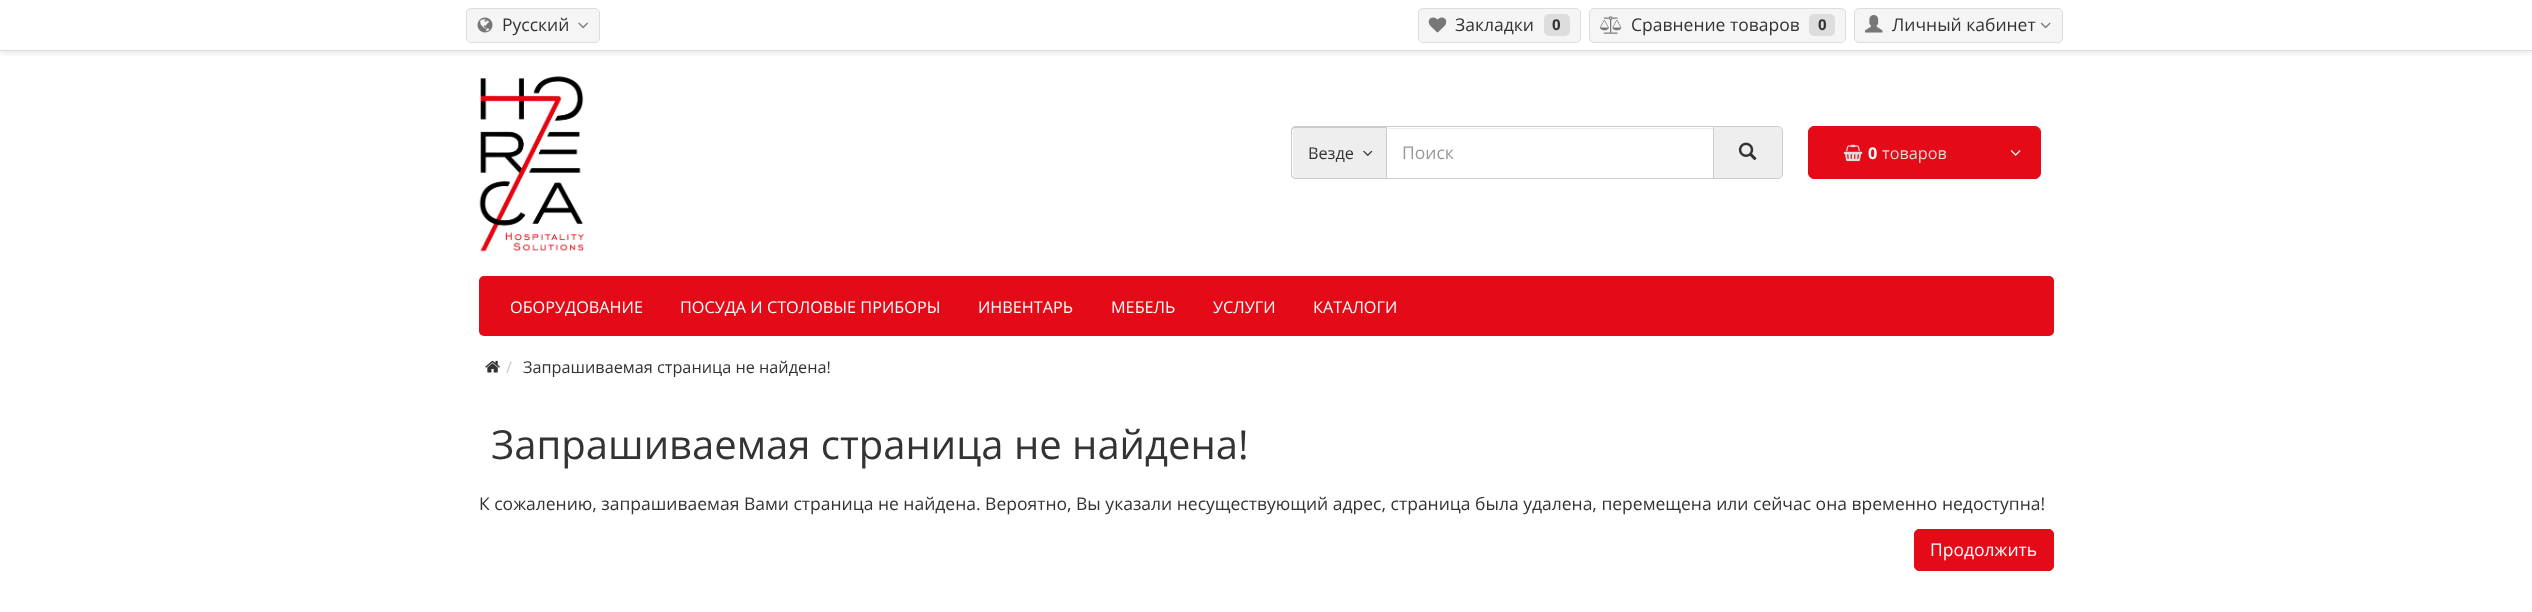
<?xml version="1.0" encoding="UTF-8"?>
<svg xmlns="http://www.w3.org/2000/svg" xmlns:xlink="http://www.w3.org/1999/xlink" width="2532" height="612">
  <defs>
    <clipPath id="clip1"><rect x="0" y="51" width="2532" height="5" /></clipPath>
  </defs>
  <rect width="100%" height="100%" fill="#ffffff" />
  <g clip-path="url(#clip1)">
    <rect y="1" width="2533" height="52" fill="#000000" fill-opacity="0.1" filter="blur(3px)" />
  </g>
  <rect y="50" width="2532" height="1" fill="#dddddd" />
  <rect x="466.5" y="8.5" width="133" height="34" rx="4.5" fill="#f5f5f5" stroke="#dddddd" />
  <image x="477" y="17" width="16" height="16" xlink:href="image1.png" />
  <image x="578" y="22" width="10" height="7" xlink:href="image2.png" />
  <rect x="1418.5" y="8.5" width="162" height="34" rx="4.5" fill="#f5f5f5" stroke="#dddddd" />
  <image x="1428" y="17" width="19" height="16" xlink:href="image3.png" />
  <rect x="1544" y="14" width="26" height="22" rx="5" fill="#dddddd" />
  <rect x="1589.5" y="8.5" width="256" height="34" rx="4.5" fill="#f5f5f5" stroke="#dddddd" />
  <image x="1600" y="16" width="22" height="18" xlink:href="image4.png" />
  <rect x="1809" y="14" width="26" height="22" rx="5" fill="#dddddd" />
  <rect x="1854.5" y="8.5" width="208" height="34" rx="4.5" fill="#f5f5f5" stroke="#dddddd" />
  <image x="1865" y="15" width="18" height="18" xlink:href="image5.png" />
  <image x="2040" y="22" width="11" height="7" xlink:href="image6.png" />
  <image x="479" y="76" width="106" height="176" xlink:href="image7.png" />
  <path d="M 1297 128 h 91 v 50 h -91 c -2 0 -4 -2 -4 -4 v -42 c 0 -2 2 -4 4 -4 z" fill="#eeeeee" />
  <path d="M 1296 126 h 92 v 53 h -92 c -3 0 -5 -2 -5 -5 v -43 c 0 -3 2 -5 5 -5 z m 0 2 h 92 v 50 h -92 c -2 0 -4 -2 -4 -4 v -43 c 0 -2 2 -3 4 -3 z" fill="#cccccc" fill-rule="evenodd" />
  <image x="1363" y="150" width="10" height="6" xlink:href="image8.png" />
  <rect x="1387" y="127" width="1" height="51" fill="#ffffff" />
  <rect x="1388" y="128" width="325" height="1" fill="#ececec" />
  <rect x="1386.5" y="126.5" width="327" height="52" fill="none" stroke="#cccccc" />
  <path d="M 1713.5 126.5 h 64.5 c 2.5 0 4.5 2 4.5 4.5 v 43 c 0 2.5 -2 4.5 -4.5 4.5 h -64.5 z" fill="#eeeeee" stroke="#cccccc" />
  <image x="1738" y="142" width="19" height="19" xlink:href="image9.png" />
  <rect x="1808.5" y="126.5" width="232" height="52" rx="5.5" fill="#e50a17" stroke="#e50a17" />
  <image x="1843" y="144" width="20" height="18" xlink:href="image10.png" />
  <image x="2010" y="150" width="11" height="6" xlink:href="image11.png" />
  <rect x="479" y="276" width="1575" height="60" rx="5" fill="#e50a17" />
  <image x="485" y="360" width="15" height="13" xlink:href="image12.png" />
  <rect x="1914.5" y="529.5" width="139" height="41" rx="4.5" fill="#e50a17" stroke="#e50a17" />
  <text x="502" y="31" style="font-family: Open Sans; font-size: 17.5px; fill: #333333">Русский</text>
  <text x="1455" y="31" style="font-family: Open Sans; font-size: 17.5px; fill: #333333">Закладки</text>
  <text x="1552" y="30" style="font-family: Open Sans; font-size: 15px; font-weight: bold; fill: #333333">0</text>
  <text x="1631" y="31" style="font-family: Open Sans; font-size: 17.5px; fill: #333333">Сравнение товаров</text>
  <text x="1818" y="30" style="font-family: Open Sans; font-size: 15px; font-weight: bold; fill: #333333">0</text>
  <text x="1892" y="31" style="font-family: Open Sans; font-size: 17.5px; fill: #333333">Личный кабинет</text>
  <text x="1308" y="159" style="font-family: Open Sans; font-size: 16.25px; fill: #333333">Везде</text>
  <text x="1402" y="159" style="font-family: Open Sans; font-size: 17.5px; fill: #999999">Поиск</text>
  <text x="1868" y="159" style="font-family: Open Sans; font-size: 16.25px; font-weight: bold; fill: #ffffff">0</text>
  <text x="1882" y="159" style="font-family: Open Sans; font-size: 16.25px; fill: #dddddd">товаров</text>
  <text x="510" y="313" style="font-family: Open Sans; font-size: 16.25px; fill: #ffffff">ОБОРУДОВАНИЕ</text>
  <text x="680" y="313" style="font-family: Open Sans; font-size: 16.25px; fill: #ffffff">ПОСУДА И СТОЛОВЫЕ ПРИБОРЫ</text>
  <text x="978" y="313" style="font-family: Open Sans; font-size: 16.25px; fill: #ffffff">ИНВЕНТАРЬ</text>
  <text x="1111" y="313" style="font-family: Open Sans; font-size: 16.25px; fill: #ffffff">МЕБЕЛЬ</text>
  <text x="1213" y="313" style="font-family: Open Sans; font-size: 16.25px; fill: #ffffff">УСЛУГИ</text>
  <text x="1313" y="313" style="font-family: Open Sans; font-size: 16.25px; fill: #ffffff">КАТАЛОГИ</text>
  <text x="506" y="373" style="font-family: Open Sans; font-size: 16.25px; fill: #cccccc">/</text>
  <text x="523" y="373" style="font-family: Open Sans; font-size: 16.25px; fill: #333333">Запрашиваемая страница не найдена!</text>
  <text x="491" y="459" style="font-family: Open Sans; font-size: 40px; fill: #333333">Запрашиваемая страница не найдена!</text>
  <text x="479" y="510" style="font-family: Open Sans; font-size: 17.5px; fill: #333333">К сожалению, запрашиваемая Вами страница не найдена. Вероятно, Вы указали несуществующий адрес, страница была удалена, перемещена или сейчас она временно недоступна!</text>
  <text x="1930" y="556" style="font-family: Open Sans; font-size: 17.5px; fill: #ffffff">Продолжить</text>
</svg>
